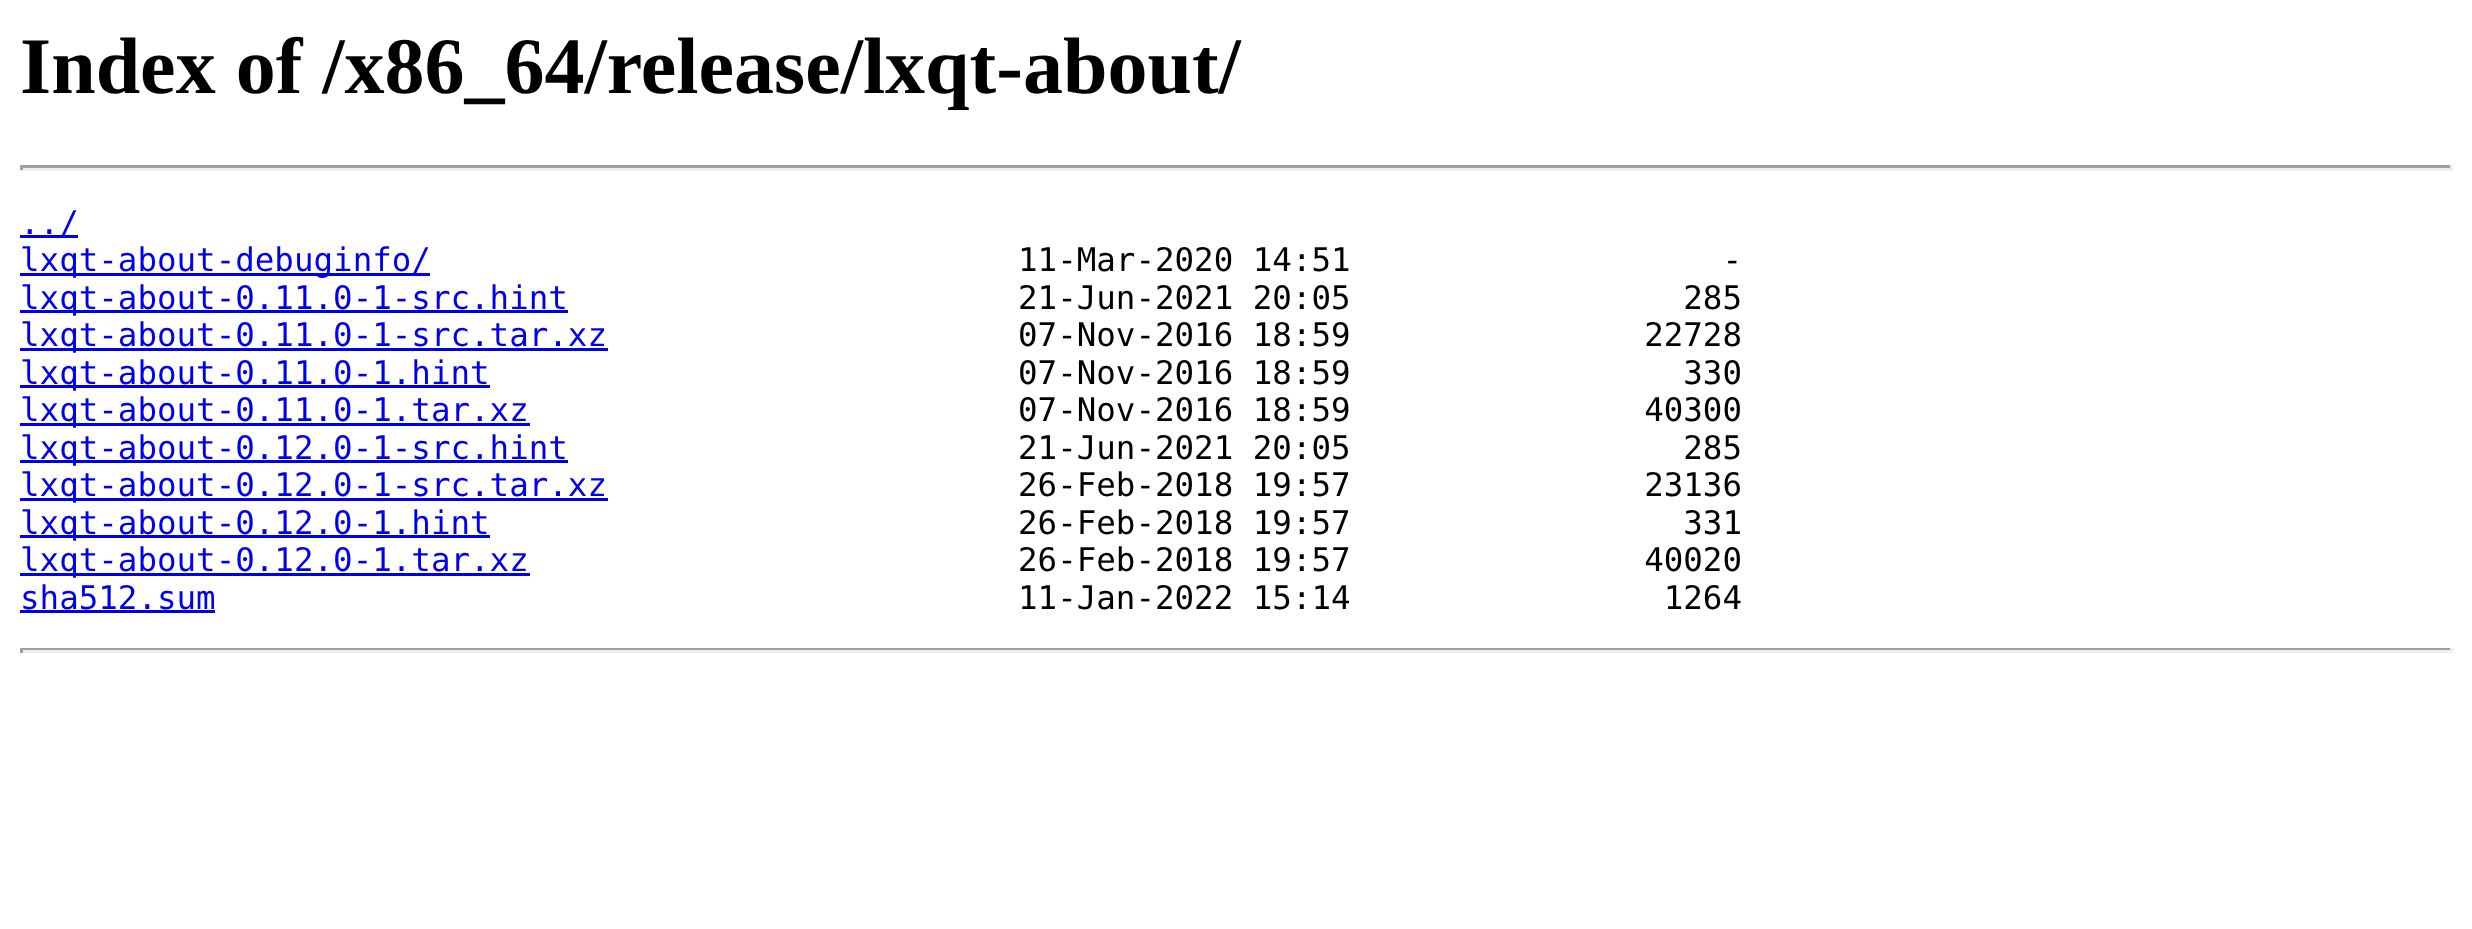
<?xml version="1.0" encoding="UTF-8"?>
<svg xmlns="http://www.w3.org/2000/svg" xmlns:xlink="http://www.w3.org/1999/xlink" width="2472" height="929">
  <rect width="100%" height="100%" fill="#ffffff" />
  <rect x="20" y="165" width="2433" height="3" fill="#9f9f9f" />
  <rect x="2450" y="165" width="3" height="5" fill="#eeeeee" />
  <rect x="20" y="168" width="2433" height="3" fill="#eeeeee" />
  <rect x="20" y="165" width="3" height="5" fill="#9f9f9f" />
  <rect x="20" y="235" width="58" height="3" fill="#0000ee" />
  <rect x="20" y="273" width="410" height="3" fill="#0000ee" />
  <rect x="20" y="310" width="548" height="3" fill="#0000ee" />
  <rect x="20" y="348" width="588" height="3" fill="#0000ee" />
  <rect x="20" y="385" width="470" height="3" fill="#0000ee" />
  <rect x="20" y="423" width="510" height="3" fill="#0000ee" />
  <rect x="20" y="460" width="548" height="3" fill="#0000ee" />
  <rect x="20" y="498" width="588" height="3" fill="#0000ee" />
  <rect x="20" y="535" width="470" height="3" fill="#0000ee" />
  <rect x="20" y="573" width="510" height="3" fill="#0000ee" />
  <rect x="20" y="610" width="195" height="3" fill="#0000ee" />
  <rect x="20" y="648" width="2433" height="2" fill="#9f9f9f" />
  <rect x="2450" y="648" width="3" height="5" fill="#eeeeee" />
  <rect x="20" y="650" width="2433" height="3" fill="#eeeeee" />
  <rect x="20" y="648" width="3" height="5" fill="#9f9f9f" />
  <text x="20" y="93" style="font-family: Liberation Serif; font-size: 80px; font-weight: bold; fill: #000000">Index of /x86_64/release/lxqt-about/</text>
  <text x="20" y="234" style="font-family: DejaVu Sans Mono; font-size: 32.5px; fill: #0000ee">../</text>
  <text x="20" y="271" style="font-family: DejaVu Sans Mono; font-size: 32.5px; fill: #0000ee">lxqt-about-debuginfo/</text>
  <text x="1018" y="271" style="font-family: DejaVu Sans Mono; font-size: 32.5px; fill: #000000" xml:space="preserve">11-Mar-2020 14:51                   -</text>
  <text x="20" y="309" style="font-family: DejaVu Sans Mono; font-size: 32.5px; fill: #0000ee">lxqt-about-0.11.0-1-src.hint</text>
  <text x="1018" y="309" style="font-family: DejaVu Sans Mono; font-size: 32.5px; fill: #000000" xml:space="preserve">21-Jun-2021 20:05                 285</text>
  <text x="20" y="346" style="font-family: DejaVu Sans Mono; font-size: 32.5px; fill: #0000ee">lxqt-about-0.11.0-1-src.tar.xz</text>
  <text x="1018" y="346" style="font-family: DejaVu Sans Mono; font-size: 32.5px; fill: #000000" xml:space="preserve">07-Nov-2016 18:59               22728</text>
  <text x="20" y="384" style="font-family: DejaVu Sans Mono; font-size: 32.5px; fill: #0000ee">lxqt-about-0.11.0-1.hint</text>
  <text x="1018" y="384" style="font-family: DejaVu Sans Mono; font-size: 32.5px; fill: #000000" xml:space="preserve">07-Nov-2016 18:59                 330</text>
  <text x="20" y="421" style="font-family: DejaVu Sans Mono; font-size: 32.5px; fill: #0000ee">lxqt-about-0.11.0-1.tar.xz</text>
  <text x="1018" y="421" style="font-family: DejaVu Sans Mono; font-size: 32.5px; fill: #000000" xml:space="preserve">07-Nov-2016 18:59               40300</text>
  <text x="20" y="459" style="font-family: DejaVu Sans Mono; font-size: 32.5px; fill: #0000ee">lxqt-about-0.12.0-1-src.hint</text>
  <text x="1018" y="459" style="font-family: DejaVu Sans Mono; font-size: 32.5px; fill: #000000" xml:space="preserve">21-Jun-2021 20:05                 285</text>
  <text x="20" y="496" style="font-family: DejaVu Sans Mono; font-size: 32.5px; fill: #0000ee">lxqt-about-0.12.0-1-src.tar.xz</text>
  <text x="1018" y="496" style="font-family: DejaVu Sans Mono; font-size: 32.5px; fill: #000000" xml:space="preserve">26-Feb-2018 19:57               23136</text>
  <text x="20" y="534" style="font-family: DejaVu Sans Mono; font-size: 32.5px; fill: #0000ee">lxqt-about-0.12.0-1.hint</text>
  <text x="1018" y="534" style="font-family: DejaVu Sans Mono; font-size: 32.5px; fill: #000000" xml:space="preserve">26-Feb-2018 19:57                 331</text>
  <text x="20" y="571" style="font-family: DejaVu Sans Mono; font-size: 32.5px; fill: #0000ee">lxqt-about-0.12.0-1.tar.xz</text>
  <text x="1018" y="571" style="font-family: DejaVu Sans Mono; font-size: 32.5px; fill: #000000" xml:space="preserve">26-Feb-2018 19:57               40020</text>
  <text x="20" y="609" style="font-family: DejaVu Sans Mono; font-size: 32.5px; fill: #0000ee">sha512.sum</text>
  <text x="1018" y="609" style="font-family: DejaVu Sans Mono; font-size: 32.5px; fill: #000000" xml:space="preserve">11-Jan-2022 15:14                1264</text>
</svg>
